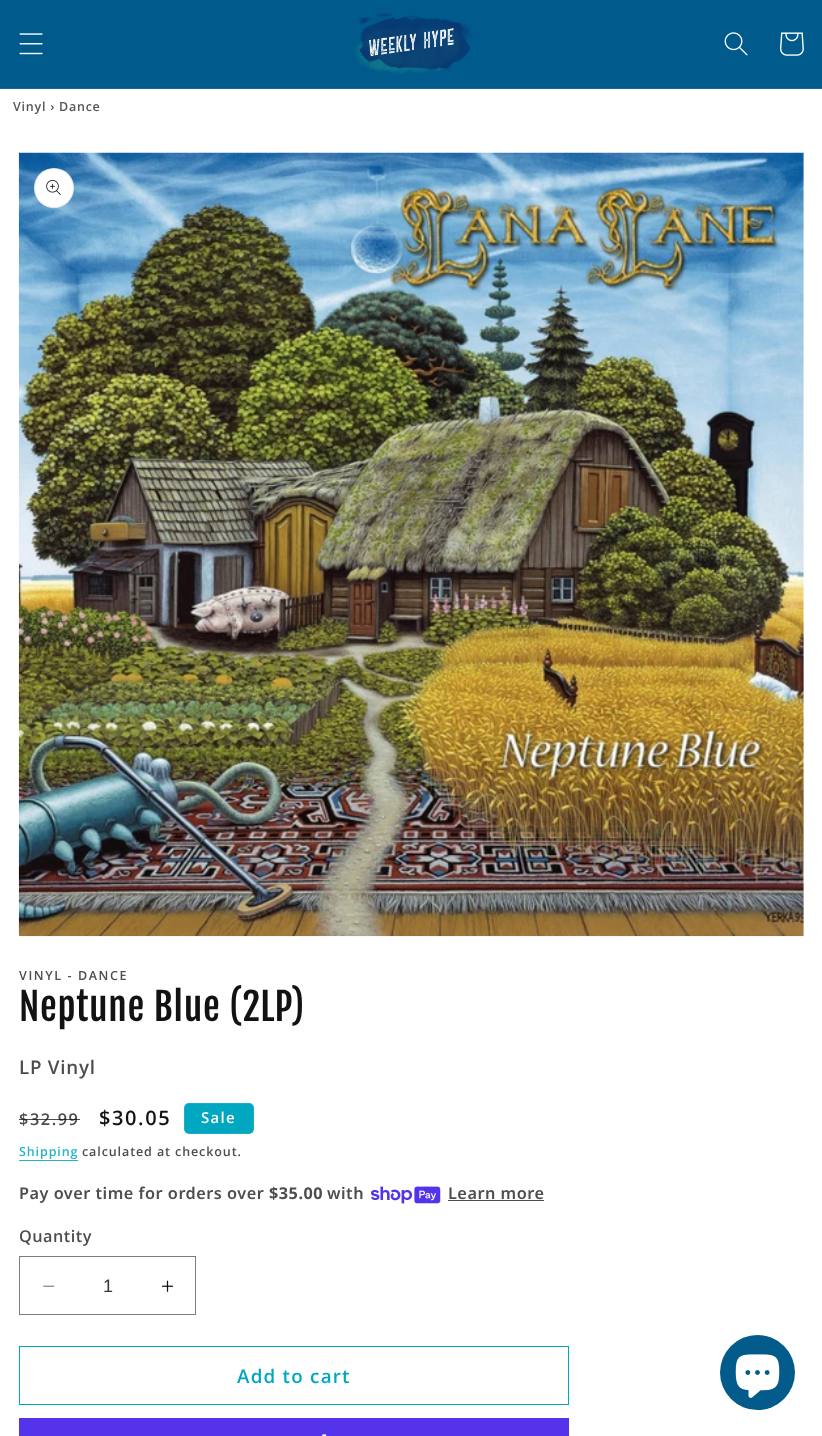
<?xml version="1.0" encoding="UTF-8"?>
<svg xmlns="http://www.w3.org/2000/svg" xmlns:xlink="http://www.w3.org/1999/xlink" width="822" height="1436">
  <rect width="100%" height="100%" fill="#ffffff" />
  <rect width="822" height="88" fill="#005b8c" />
  <rect y="88" width="822" height="1" fill="#146895" />
  <image x="19" y="33" width="24" height="22" xlink:href="image1.png" />
  <image x="354" y="13" width="119" height="62" xlink:href="image2.png" />
  <image x="724" y="32" width="24" height="24" xlink:href="image3.png" />
  <image x="780" y="32" width="24" height="24" xlink:href="image4.png" />
  <image x="18" y="152" width="786" height="785" xlink:href="image5.png" />
  <circle cx="54" cy="188" r="20" fill="#ffffff" />
  <circle cx="54" cy="188" r="19.5" fill="none" stroke="#121212" stroke-opacity="0.1" />
  <image x="46" y="180" width="15" height="15" xlink:href="image6.png" />
  <rect x="184" y="1103" width="70" height="31" rx="5" fill="#00a7c1" />
  <rect x="184.5" y="1103.5" width="69" height="30" rx="4.5" fill="none" stroke="#ffffff" stroke-opacity="0.1" />
  <rect x="19" y="1160" width="59" height="1" fill="#26b4ca" />
  <image x="371" y="1186" width="70" height="18" xlink:href="image7.png" />
  <rect x="448" y="1200" width="96" height="1" fill="#4d4d4d" />
  <image x="43" y="1285" width="12" height="2" xlink:href="image8.png" />
  <image x="161" y="1280" width="13" height="12" xlink:href="image9.png" />
  <rect x="19.5" y="1256.5" width="176" height="58" fill="none" stroke="#7d7d7d" />
  <rect x="19.5" y="1346.5" width="549" height="58" fill="none" stroke="#00a7c1" />
  <rect x="19" y="1418" width="550" height="18" fill="#5433eb" />
  <image x="322" y="1434" width="5" height="2" xlink:href="image10.png" />
  <circle cx="757.5" cy="1372.5" r="37.5" fill="#025b8b" />
  <image x="735" y="1354" width="45" height="44" xlink:href="image11.png" />
  <text x="13" y="111" style="font-family: Open Sans; font-size: 12.5px; font-weight: 600; letter-spacing: 0.75px; fill: #555757">Vinyl › Dance</text>
  <text x="19" y="980" style="font-family: Open Sans; font-size: 12.5px; font-weight: 600; letter-spacing: 1.6px; fill: #4d4d4d">VINYL - DANCE</text>
  <text x="19" y="1021" style="font-family: Fjalla One; font-size: 37.5px; letter-spacing: 0.75px; fill: #121212">Neptune Blue (2LP)</text>
  <text x="19" y="1074" style="font-family: Open Sans; font-size: 18.75px; font-weight: 600; letter-spacing: 0.75px; fill: #4d4d4d">LP Vinyl</text>
  <text x="19" y="1125" style="font-family: Open Sans; font-size: 16.25px; font-weight: 600; letter-spacing: 1.6px; fill: #4d4d4d">$32.99</text>
  <rect x="19" y="1119" width="61" height="1" fill="#121212" fill-opacity="0.75" />
  <text x="99" y="1125" style="font-family: Open Sans; font-size: 20px; font-weight: 600; letter-spacing: 1.6px; fill: #121212">$30.05</text>
  <text x="201" y="1123" style="font-family: Open Sans; font-size: 15px; font-weight: 600; letter-spacing: 1.25px; fill: #ffffff">Sale</text>
  <text x="19" y="1156" style="font-family: Open Sans; font-size: 12.5px; font-weight: 600; letter-spacing: 0.9px; fill: #26b4ca">Shipping</text>
  <text x="82" y="1156" style="font-family: Open Sans; font-size: 12.5px; font-weight: 600; letter-spacing: 0.9px; fill: #4d4d4d">calculated at checkout.</text>
  <text x="19" y="1199" style="font-family: Noto Sans; font-size: 16.25px; font-weight: 600; letter-spacing: 0.5px; fill: #4d4d4d">Pay over time for orders over</text>
  <text x="269" y="1199" style="font-family: Noto Sans; font-size: 16.25px; font-weight: bold; letter-spacing: 0.5px; fill: #4d4d4d">$35.00</text>
  <text x="327" y="1199" style="font-family: Noto Sans; font-size: 16.25px; font-weight: 600; letter-spacing: 0.5px; fill: #4d4d4d">with</text>
  <text x="448" y="1199" style="font-family: Noto Sans; font-size: 16.25px; font-weight: 600; letter-spacing: 0.5px; fill: #4d4d4d">Learn more</text>
  <text x="19" y="1242" style="font-family: Open Sans; font-size: 16.25px; font-weight: 600; letter-spacing: 0.5px; fill: #4d4d4d">Quantity</text>
  <text x="103" y="1292" style="font-family: Liberation Sans; font-size: 18px; fill: #363636">1</text>
  <text x="237" y="1383" style="font-family: Open Sans; font-size: 18.75px; font-weight: 600; letter-spacing: 1.25px; fill: #00a7c1">Add to cart</text>
</svg>
